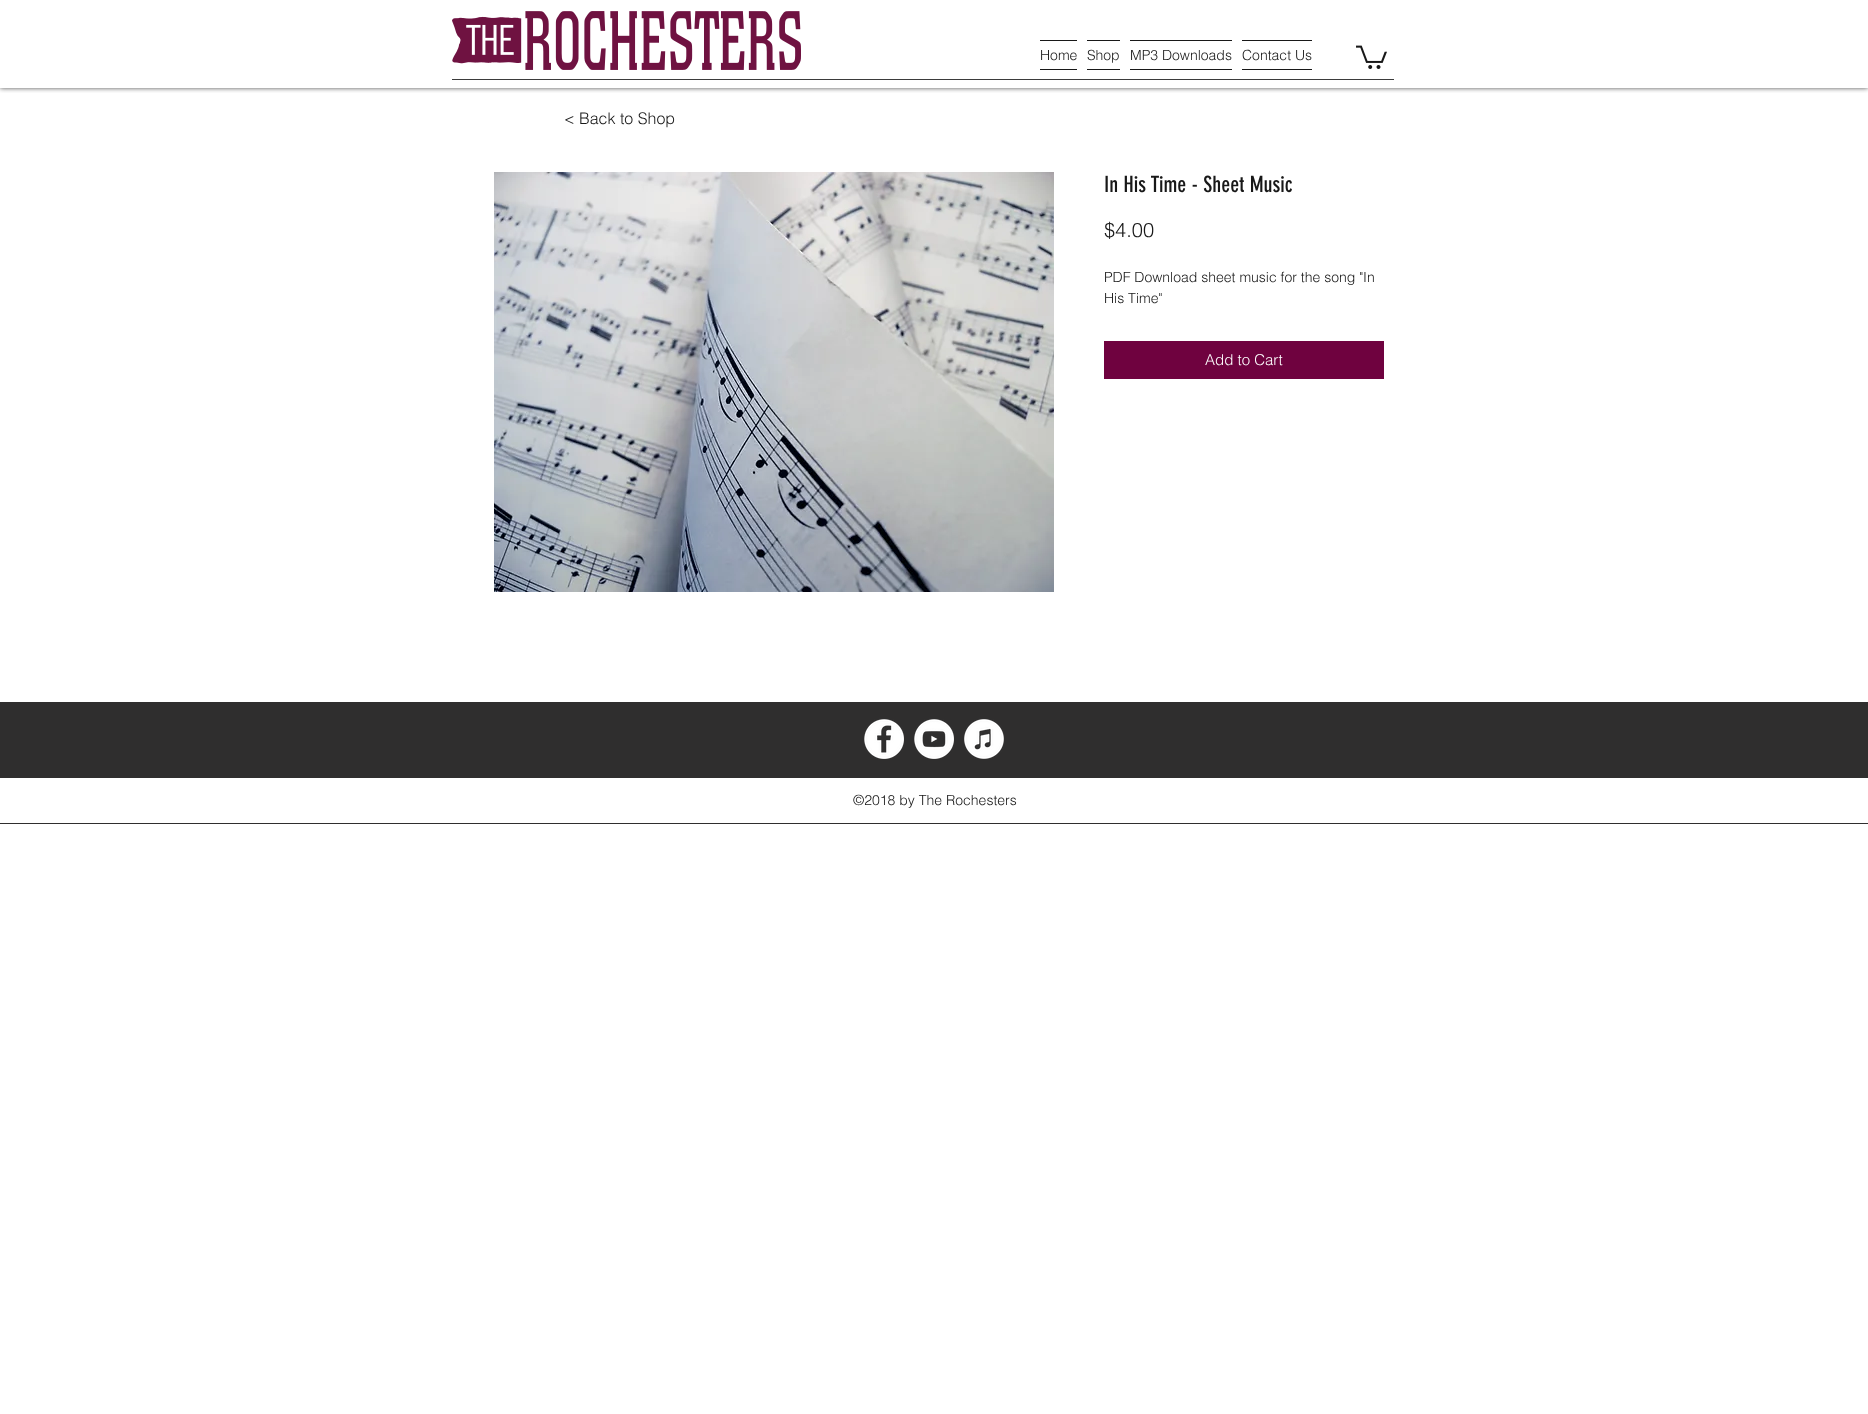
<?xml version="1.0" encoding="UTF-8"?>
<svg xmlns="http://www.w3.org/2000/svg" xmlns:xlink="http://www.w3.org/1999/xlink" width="1868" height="1414">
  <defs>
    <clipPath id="clip1"><rect x="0" y="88" width="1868" height="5" /></clipPath>
  </defs>
  <rect width="100%" height="100%" fill="#ffffff" />
  <g clip-path="url(#clip1)">
    <rect width="1868" height="88" fill="#000000" fill-opacity="0.7" filter="blur(2.5px)" />
  </g>
  <image x="452" y="11" width="349" height="59" xlink:href="image1.png" />
  <rect x="1040" y="40" width="37" height="1" fill="#181818" />
  <rect x="1040" y="69" width="37" height="1" fill="#181818" />
  <rect x="1087" y="40" width="33" height="1" fill="#181818" />
  <rect x="1087" y="69" width="33" height="1" fill="#181818" />
  <rect x="1130" y="40" width="102" height="1" fill="#181818" />
  <rect x="1130" y="69" width="102" height="1" fill="#181818" />
  <rect x="1242" y="40" width="70" height="1" fill="#181818" />
  <rect x="1242" y="69" width="70" height="1" fill="#181818" />
  <image x="1356" y="45" width="31" height="24" xlink:href="image2.png" />
  <rect x="452" y="79" width="942" height="1" fill="#3b3b3b" />
  <image x="494" y="172" width="560" height="420" xlink:href="image3.png" />
  <rect x="1104" y="341" width="280" height="38" fill="#6f023f" />
  <rect y="702" width="1868" height="122" fill="#2f2e2e" />
  <image x="864" y="719" width="40" height="40" xlink:href="image4.png" />
  <image x="914" y="719" width="40" height="40" xlink:href="image5.png" />
  <image x="964" y="719" width="40" height="40" xlink:href="image6.png" />
  <rect y="778" width="1868" height="45" fill="#ffffff" />
  <text x="1040" y="60" style="font-family: helvetica; font-size: 14px; font-weight: 300; fill: #181818">Home</text>
  <text x="1087" y="60" style="font-family: helvetica; font-size: 14px; font-weight: 300; fill: #181818">Shop</text>
  <text x="1130" y="60" style="font-family: helvetica; font-size: 14px; font-weight: 300; fill: #181818">MP3 Downloads</text>
  <text x="1242" y="60" style="font-family: helvetica; font-size: 14px; font-weight: 300; fill: #181818">Contact Us</text>
  <text x="564" y="124" style="font-family: helvetica; font-size: 16px; font-weight: 300; fill: #181818">&lt; Back to Shop</text>
  <text x="1104" y="192" style="font-family: 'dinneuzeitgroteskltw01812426'; font-size: 22px; fill: #181818">In His Time - Sheet Music</text>
  <text x="1104" y="237" style="font-family: helvetica; font-size: 20px; font-weight: 300; fill: #181818">$4.00</text>
  <text x="1104" y="282" style="font-family: helvetica; font-size: 14px; font-weight: 300; fill: #181818">PDF Download sheet music for the song "In</text>
  <text x="1104" y="303" style="font-family: helvetica; font-size: 14px; font-weight: 300; fill: #181818">His Time"</text>
  <text x="1205" y="365" style="font-family: helvetica; font-size: 15px; font-weight: 300; fill: #ffffff">Add to Cart</text>
  <text x="853" y="805" style="font-family: helvetica; font-size: 14px; font-weight: 300; fill: #181818">©2018 by The Rochesters</text>
</svg>
